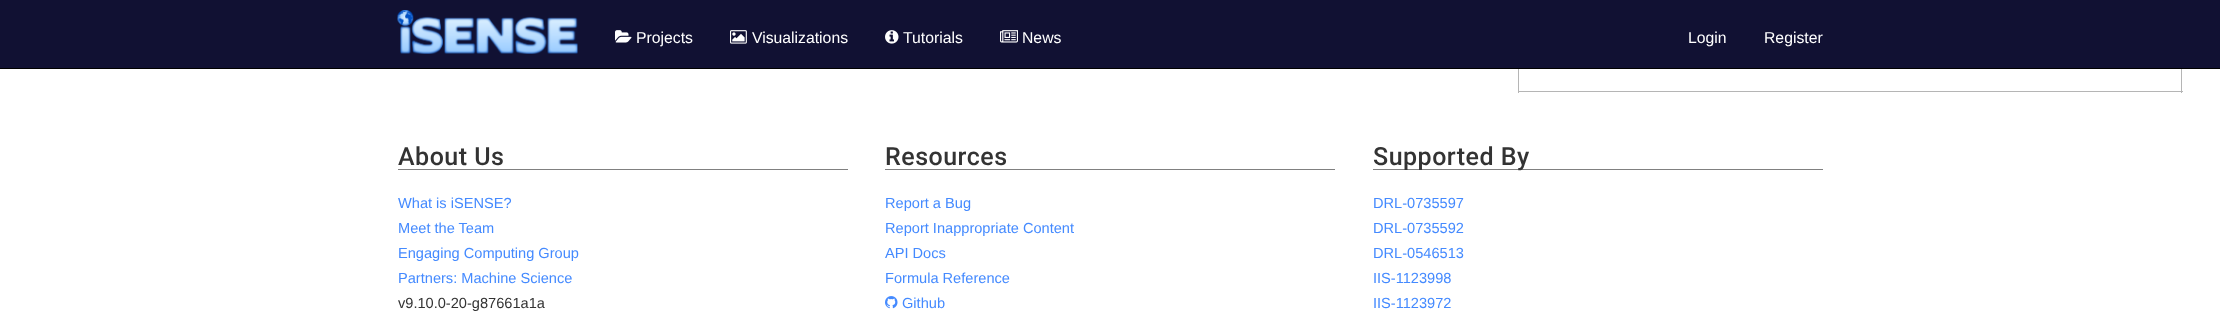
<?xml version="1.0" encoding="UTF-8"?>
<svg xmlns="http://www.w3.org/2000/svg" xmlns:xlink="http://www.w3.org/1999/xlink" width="2220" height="313">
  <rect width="100%" height="100%" fill="#ffffff" />
  <rect width="2220" height="68" fill="#111133" />
  <rect y="68" width="2220" height="1" fill="#000000" />
  <image x="397" y="10" width="181" height="44" xlink:href="image1.png" />
  <image x="615" y="30" width="17" height="13" xlink:href="image2.png" />
  <image x="730" y="30" width="17" height="14" xlink:href="image3.png" />
  <image x="885" y="30" width="14" height="14" xlink:href="image4.png" />
  <image x="1000" y="30" width="18" height="13" xlink:href="image5.png" />
  <rect x="2181" y="69" width="1" height="24" fill="#b5b5b5" />
  <rect x="1518" y="91" width="665" height="1" fill="#b5b5b5" />
  <rect x="1518" y="69" width="1" height="24" fill="#b5b5b5" />
  <rect x="398" y="169" width="450" height="1" fill="#808080" />
  <rect x="885" y="169" width="450" height="1" fill="#808080" />
  <image x="885" y="296" width="13" height="13" xlink:href="image6.png" />
  <rect x="1373" y="169" width="450" height="1" fill="#808080" />
  <text x="636" y="43" style="font-family: Liberation Sans; font-size: 15.75px; fill: #ffffff">Projects</text>
  <text x="752" y="43" style="font-family: Liberation Sans; font-size: 15.75px; fill: #ffffff">Visualizations</text>
  <text x="903" y="43" style="font-family: Liberation Sans; font-size: 15.75px; fill: #ffffff">Tutorials</text>
  <text x="1022" y="43" style="font-family: Liberation Sans; font-size: 15.75px; fill: #ffffff">News</text>
  <text x="1688" y="43" style="font-family: Liberation Sans; font-size: 15.75px; fill: #ffffff">Login</text>
  <text x="1764" y="43" style="font-family: Liberation Sans; font-size: 15.75px; fill: #ffffff">Register</text>
  <text x="398" y="165" style="font-family: Roboto; font-size: 25px; font-weight: 500; letter-spacing: 0.5px; fill: #333333">About Us</text>
  <text x="398" y="208" style="font-family: Liberation Sans; font-size: 14.6px; fill: #448aff">What is iSENSE?</text>
  <text x="398" y="233" style="font-family: Liberation Sans; font-size: 14.6px; fill: #448aff">Meet the Team</text>
  <text x="398" y="258" style="font-family: Liberation Sans; font-size: 14.6px; fill: #448aff">Engaging Computing Group</text>
  <text x="398" y="283" style="font-family: Liberation Sans; font-size: 14.6px; fill: #448aff">Partners: Machine Science</text>
  <text x="398" y="308" style="font-family: Liberation Sans; font-size: 14.6px; fill: #333333">v9.10.0-20-g87661a1a</text>
  <text x="885" y="165" style="font-family: Roboto; font-size: 25px; font-weight: 500; letter-spacing: 0.5px; fill: #333333">Resources</text>
  <text x="885" y="208" style="font-family: Liberation Sans; font-size: 14.6px; fill: #448aff">Report a Bug</text>
  <text x="885" y="233" style="font-family: Liberation Sans; font-size: 14.6px; fill: #448aff">Report Inappropriate Content</text>
  <text x="885" y="258" style="font-family: Liberation Sans; font-size: 14.6px; fill: #448aff">API Docs</text>
  <text x="885" y="283" style="font-family: Liberation Sans; font-size: 14.6px; fill: #448aff">Formula Reference</text>
  <text x="902" y="308" style="font-family: Liberation Sans; font-size: 14.6px; fill: #448aff">Github</text>
  <text x="1373" y="165" style="font-family: Roboto; font-size: 25px; font-weight: 500; letter-spacing: 0.5px; fill: #333333">Supported By</text>
  <text x="1373" y="208" style="font-family: Liberation Sans; font-size: 14.6px; fill: #448aff">DRL-0735597</text>
  <text x="1373" y="233" style="font-family: Liberation Sans; font-size: 14.6px; fill: #448aff">DRL-0735592</text>
  <text x="1373" y="258" style="font-family: Liberation Sans; font-size: 14.6px; fill: #448aff">DRL-0546513</text>
  <text x="1373" y="283" style="font-family: Liberation Sans; font-size: 14.6px; fill: #448aff">IIS-1123998</text>
  <text x="1373" y="308" style="font-family: Liberation Sans; font-size: 14.6px; fill: #448aff">IIS-1123972</text>
</svg>
